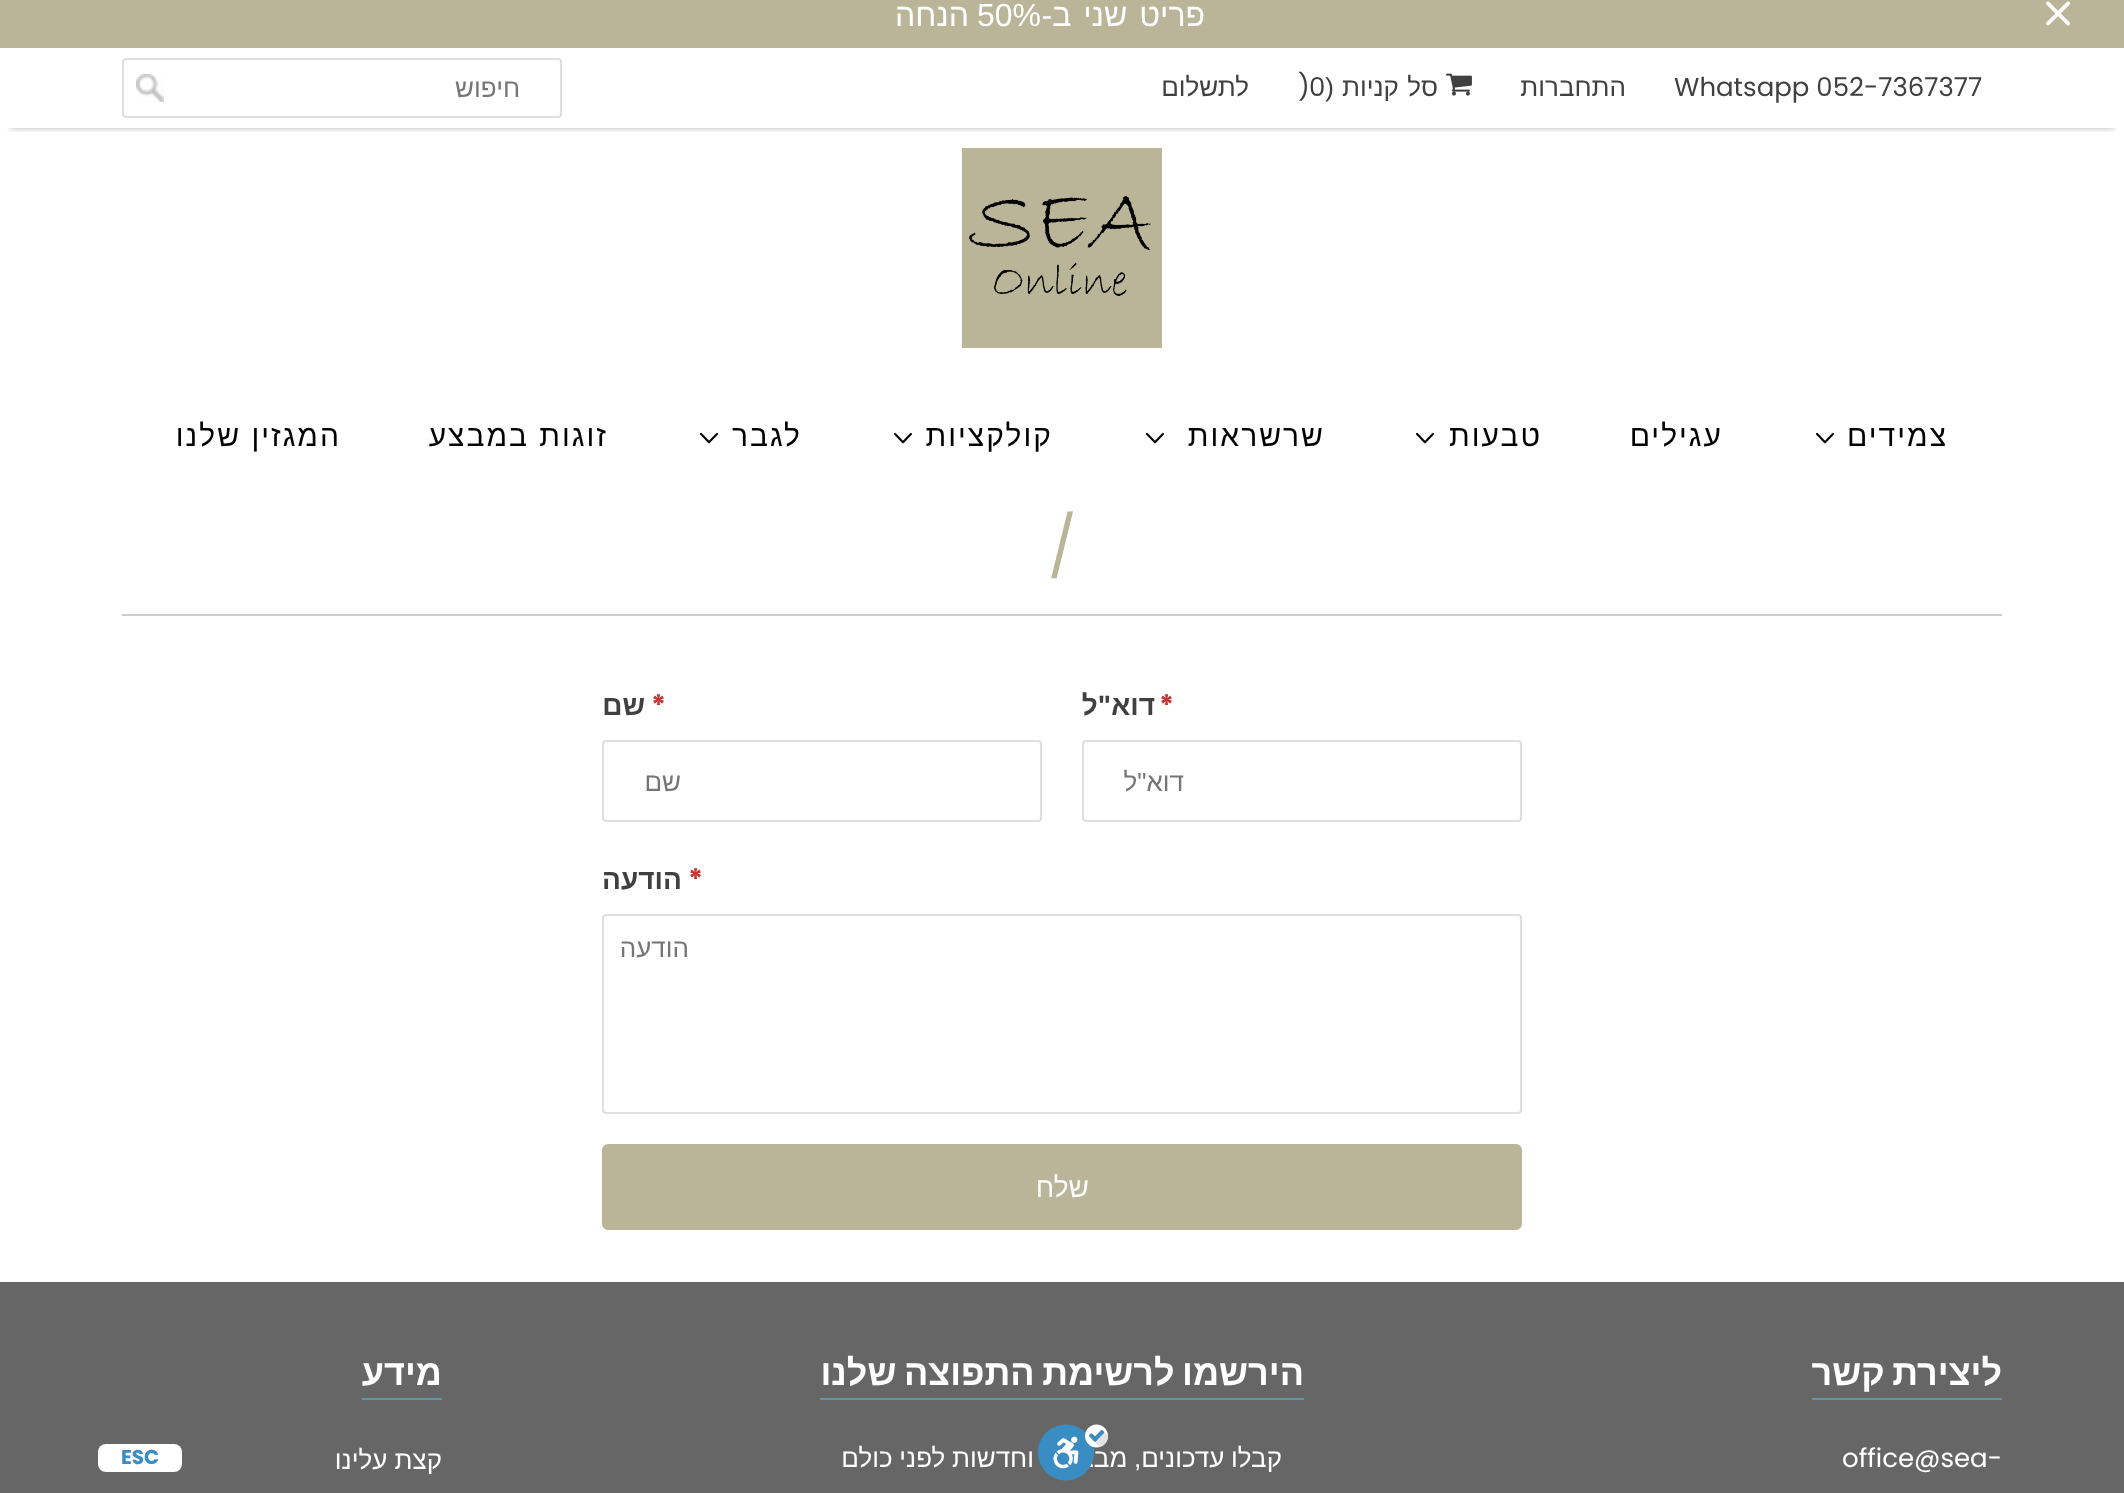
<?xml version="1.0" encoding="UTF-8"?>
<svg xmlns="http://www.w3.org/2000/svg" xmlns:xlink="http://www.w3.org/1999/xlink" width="2124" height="1493">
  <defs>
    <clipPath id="clip1"><rect x="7" y="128" width="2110" height="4" /></clipPath>
  </defs>
  <rect width="100%" height="100%" fill="#ffffff" />
  <rect width="2124" height="48" fill="#bab598" />
  <image x="2046" y="1" width="24" height="25" xlink:href="image1.png" />
  <g clip-path="url(#clip1)">
    <rect x="10" y="68" width="2104" height="60" fill="#000000" fill-opacity="0.3" filter="blur(3px)" />
  </g>
  <image x="1446" y="73" width="26" height="23" xlink:href="image2.png" />
  <image x="136" y="74" width="28" height="28" xlink:href="image3.png" />
  <rect x="123" y="59" width="438" height="58" rx="3" fill="none" stroke="#dfdfdf" stroke-width="2" />
  <image x="962" y="148" width="200" height="200" xlink:href="image4.png" />
  <image x="1816" y="432" width="18" height="12" xlink:href="image5.png" />
  <image x="1416" y="432" width="18" height="12" xlink:href="image5.png" />
  <image x="1146" y="432" width="18" height="12" xlink:href="image5.png" />
  <image x="894" y="432" width="18" height="12" xlink:href="image5.png" />
  <image x="700" y="432" width="18" height="12" xlink:href="image5.png" />
  <rect x="122" y="614" width="1880" height="2" fill="#cdcdcd" />
  <rect x="1083" y="741" width="438" height="80" rx="3" fill="none" stroke="#dfdfdf" stroke-width="2" />
  <rect x="603" y="741" width="438" height="80" rx="3" fill="none" stroke="#dfdfdf" stroke-width="2" />
  <rect x="603" y="915" width="918" height="198" rx="3" fill="none" stroke="#dfdfdf" stroke-width="2" />
  <rect x="603" y="1145" width="918" height="84" rx="5" fill="#bab598" stroke="#bab598" stroke-width="2" />
  <rect y="1282" width="2124" height="211" fill="#666666" />
  <rect x="1812" y="1398" width="190" height="2" fill="#5f97a7" />
  <rect x="820" y="1398" width="484" height="2" fill="#5f97a7" />
  <rect x="362" y="1398" width="80" height="2" fill="#5f97a7" />
  <rect x="98" y="1444" width="84" height="28" rx="8" fill="#ffffff" />
  <text x="1205" y="26" word-spacing="3" style="font-family: Liberation Sans; font-size: 32px; direction: rtl; fill: #ffffff">פריט שני ב-</text>
  <text x="977" y="26" style="font-family: Liberation Sans; font-size: 32px; fill: #ffffff">50%</text>
  <text x="969" y="26" style="font-family: Liberation Sans; font-size: 32px; direction: rtl; fill: #ffffff">הנחה</text>
  <text x="1674" y="96" style="font-family: Poppins; font-size: 26px; fill: #404040">Whatsapp 052-7367377</text>
  <text x="1626" y="96" style="font-family: Liberation Sans; font-size: 26px; direction: rtl; fill: #404040">התחברות</text>
  <text x="1438" y="96" word-spacing="1" style="font-family: Liberation Sans; font-size: 26px; direction: rtl; fill: #404040">סל קניות (</text>
  <text x="1309" y="96" style="font-family: Poppins; font-size: 26px; fill: #404040">0</text>
  <text x="1298" y="96" style="font-family: Poppins; font-size: 26px; fill: #404040">)</text>
  <text x="1249" y="96" style="font-family: Liberation Sans; font-size: 26px; direction: rtl; fill: #404040">לתשלום</text>
  <text x="520" y="97" style="font-family: Liberation Sans; font-size: 26px; direction: rtl; fill: #757575">חיפוש</text>
  <text x="1948" y="446" style="font-family: Liberation Sans; font-size: 30px; letter-spacing: 2px; direction: rtl; fill: #000000">צמידים</text>
  <text x="1723" y="446" style="font-family: Liberation Sans; font-size: 30px; letter-spacing: 2px; direction: rtl; fill: #000000">עגילים</text>
  <text x="1542" y="446" style="font-family: Liberation Sans; font-size: 30px; letter-spacing: 2px; direction: rtl; fill: #000000">טבעות</text>
  <text x="1325" y="446" style="font-family: Liberation Sans; font-size: 30px; letter-spacing: 2px; direction: rtl; fill: #000000">שרשראות</text>
  <text x="1053" y="446" style="font-family: Liberation Sans; font-size: 30px; letter-spacing: 2px; direction: rtl; fill: #000000">קולקציות</text>
  <text x="802" y="446" style="font-family: Liberation Sans; font-size: 30px; letter-spacing: 2px; direction: rtl; fill: #000000">לגבר</text>
  <text x="608" y="446" style="font-family: Liberation Sans; font-size: 30px; letter-spacing: 2px; direction: rtl; fill: #000000">זוגות במבצע</text>
  <text x="341" y="446" style="font-family: Liberation Sans; font-size: 30px; letter-spacing: 2px; direction: rtl; fill: #000000">המגזין שלנו</text>
  <text x="1048" y="568" style="font-family: Poppins; font-size: 60px; fill: #bab598">/</text>
  <text x="1159" y="715" style="font-family: Poppins; font-size: 28px; font-weight: bold; fill: #cc3333">*</text>
  <text x="1155" y="715" style="font-family: Liberation Sans; font-size: 28px; font-weight: bold; direction: rtl; fill: #404040">דוא"ל</text>
  <text x="1184" y="791" style="font-family: Liberation Sans; font-size: 26px; direction: rtl; fill: #757575">דוא"ל</text>
  <text x="651" y="715" style="font-family: Poppins; font-size: 28px; font-weight: bold; fill: #cc3333">*</text>
  <text x="645" y="715" style="font-family: Liberation Sans; font-size: 28px; font-weight: bold; direction: rtl; fill: #404040">שם</text>
  <text x="681" y="791" style="font-family: Liberation Sans; font-size: 26px; direction: rtl; fill: #757575">שם</text>
  <text x="688" y="889" style="font-family: Poppins; font-size: 28px; font-weight: bold; fill: #cc3333">*</text>
  <text x="682" y="889" style="font-family: Liberation Sans; font-size: 28px; font-weight: bold; direction: rtl; fill: #404040">הודעה</text>
  <text x="689" y="957" style="font-family: Liberation Sans; font-size: 26px; direction: rtl; fill: #757575">הודעה</text>
  <text x="1089" y="1197" style="font-family: Liberation Sans; font-size: 28px; direction: rtl; fill: #ffffff">שלח</text>
  <text x="2002" y="1385" word-spacing="-2.5" style="font-family: Liberation Sans; font-size: 36px; font-weight: bold; direction: rtl; fill: #ffffff">ליצירת קשר</text>
  <text x="1842" y="1467" style="font-family: Poppins; font-size: 26px; fill: #ffffff">office@sea-</text>
  <text x="1304" y="1385" word-spacing="-2.5" style="font-family: Liberation Sans; font-size: 36px; font-weight: bold; direction: rtl; fill: #ffffff">הירשמו לרשימת התפוצה שלנו</text>
  <text x="1282" y="1467" word-spacing="-0.5" style="font-family: Liberation Sans; font-size: 26px; direction: rtl; fill: #ffffff">קבלו עדכונים, מבצעים וחדשות לפני כולם</text>
  <text x="442" y="1385" style="font-family: Liberation Sans; font-size: 36px; font-weight: bold; direction: rtl; fill: #ffffff">מידע</text>
  <text x="442" y="1469" style="font-family: Liberation Sans; font-size: 26px; direction: rtl; fill: #ffffff">קצת עלינו</text>
  <image x="1038" y="1424" width="71" height="57" xlink:href="image6.png" />
  <text x="121" y="1464" style="font-family: Poppins; font-size: 20px; font-weight: bold; fill: #3a8dc2">ESC</text>
</svg>
